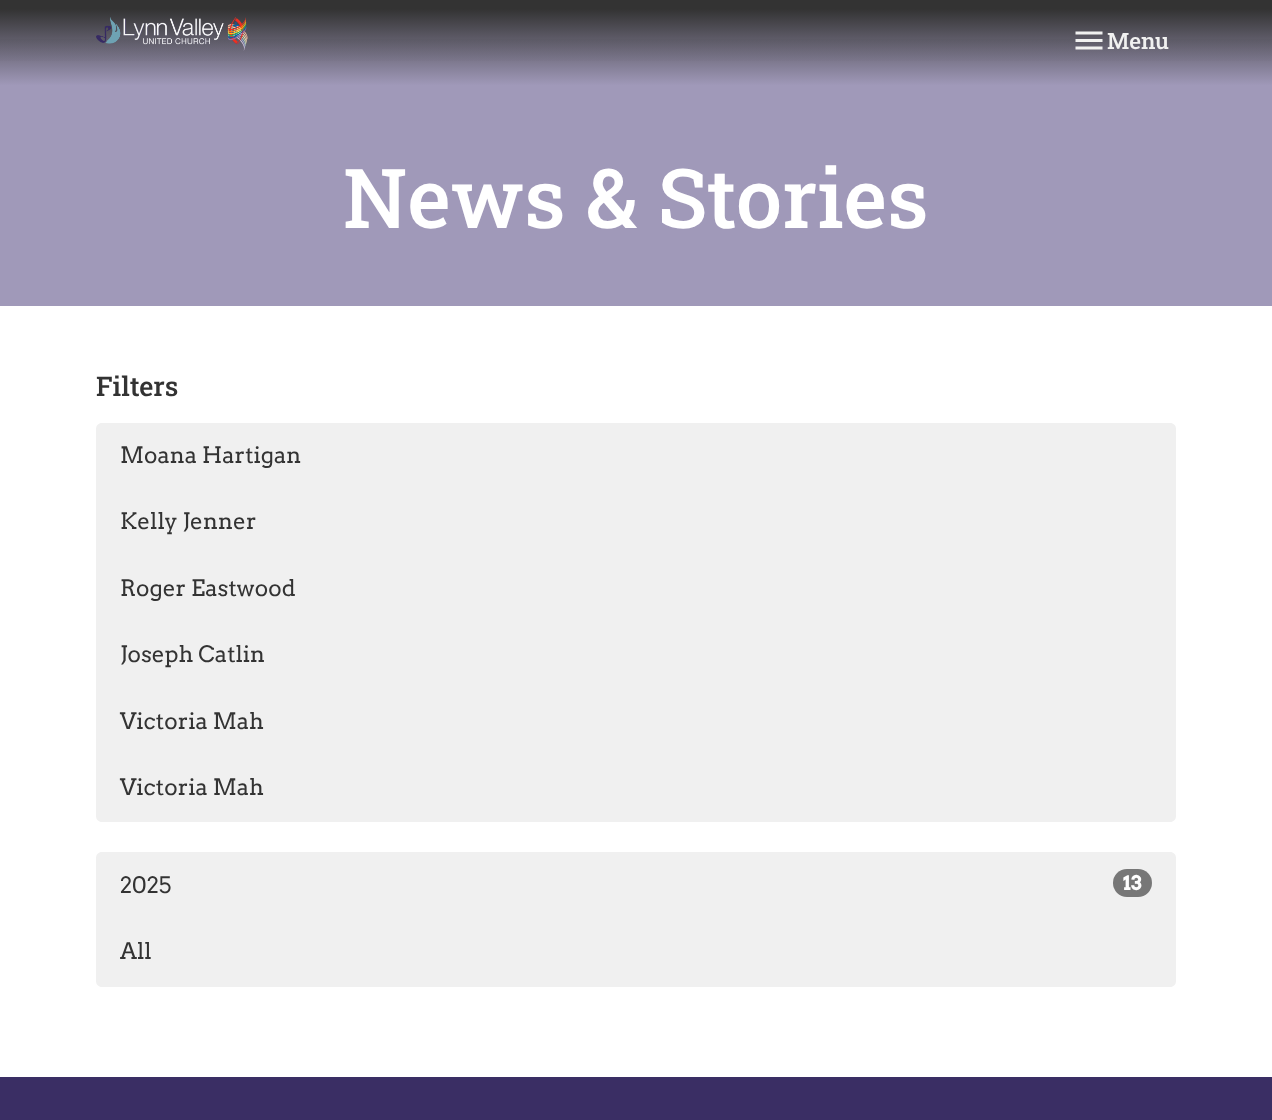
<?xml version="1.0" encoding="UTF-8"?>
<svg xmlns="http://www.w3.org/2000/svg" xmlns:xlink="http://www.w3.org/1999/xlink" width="1272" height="1120">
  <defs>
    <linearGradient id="g1" gradientUnits="userSpaceOnUse" x1="636" y1="90" x2="636" y2="0"><stop offset="0.05" stop-color="#a099b9" /><stop offset="0.9" stop-color="#333333" /><stop offset="1" stop-color="#333333" /></linearGradient>
    <linearGradient id="g2" gradientUnits="userSpaceOnUse" x1="636" y1="90" x2="636" y2="0"><stop offset="0.05" stop-color="#333333" stop-opacity="0" /><stop offset="0.9" stop-color="#333333" stop-opacity="0.08" /><stop offset="1" stop-color="#333333" stop-opacity="0.08" /></linearGradient>
  </defs>
  <rect width="100%" height="100%" fill="#ffffff" />
  <rect width="1272" height="90" fill="url(#g1)" />
  <rect y="39" width="1272" height="22" fill="url(#g2)" />
  <image x="96" y="17" width="152" height="34" xlink:href="image1.png" />
  <image x="1075" y="31" width="28" height="19" xlink:href="image2.png" />
  <rect y="90" width="1272" height="216" fill="#a099b9" />
  <path d="M 102 423 h 1068 c 3.5 0 6 2.5 6 6 v 62 h -1080 v -62 c 0 -3.5 2.5 -6 6 -6 z" fill="#f0f0f0" />
  <rect x="96" y="491" width="1080" height="264" fill="#f0f0f0" />
  <path d="M 96 755 h 1080 v 61 c 0 3.5 -2.5 6 -6 6 h -1068 c -3.5 0 -6 -2.5 -6 -6 z" fill="#f0f0f0" />
  <path d="M 102 852 h 1068 c 3.5 0 6 2.5 6 6 v 62 h -1080 v -62 c 0 -3.5 2.5 -6 6 -6 z" fill="#f0f0f0" />
  <rect x="1113" y="869" width="39" height="28" rx="14" fill="#777777" />
  <path d="M 96 918 h 1080 v 63 c 0 3.5 -2.5 6 -6 6 h -1068 c -3.5 0 -6 -2.5 -6 -6 z" fill="#f0f0f0" />
  <rect y="1077" width="1272" height="43" fill="#3a2e64" />
  <text x="1107" y="49" style="font-family: Roboto Slab; font-size: 22.5px; font-weight: 500; fill: #f1f1f1">Menu</text>
  <text x="343" y="228" style="font-family: Roboto Slab; font-size: 82.5px; font-weight: 500; fill: #ffffff">News &amp; Stories</text>
  <text x="96" y="396" style="font-family: Roboto Slab; font-size: 27px; font-weight: 500; fill: #333333">Filters</text>
  <text x="120" y="463" style="font-family: Arvo; font-size: 22.5px; fill: #333333">Moana Hartigan</text>
  <text x="120" y="529" style="font-family: Arvo; font-size: 22.5px; fill: #333333">Kelly Jenner</text>
  <text x="120" y="596" style="font-family: Arvo; font-size: 22.5px; fill: #333333">Roger Eastwood</text>
  <text x="120" y="662" style="font-family: Arvo; font-size: 22.5px; fill: #333333">Joseph Catlin</text>
  <text x="120" y="729" style="font-family: Arvo; font-size: 22.5px; fill: #333333">Victoria Mah</text>
  <text x="120" y="795" style="font-family: Arvo; font-size: 22.5px; fill: #333333">Victoria Mah</text>
  <text x="120" y="893" style="font-family: Arvo; font-size: 22.5px; fill: #333333">2025</text>
  <text x="1123" y="890" style="font-family: Arvo; font-size: 20px; font-weight: bold; fill: #ffffff">13</text>
  <text x="120" y="959" style="font-family: Arvo; font-size: 22.5px; fill: #333333">All</text>
</svg>
